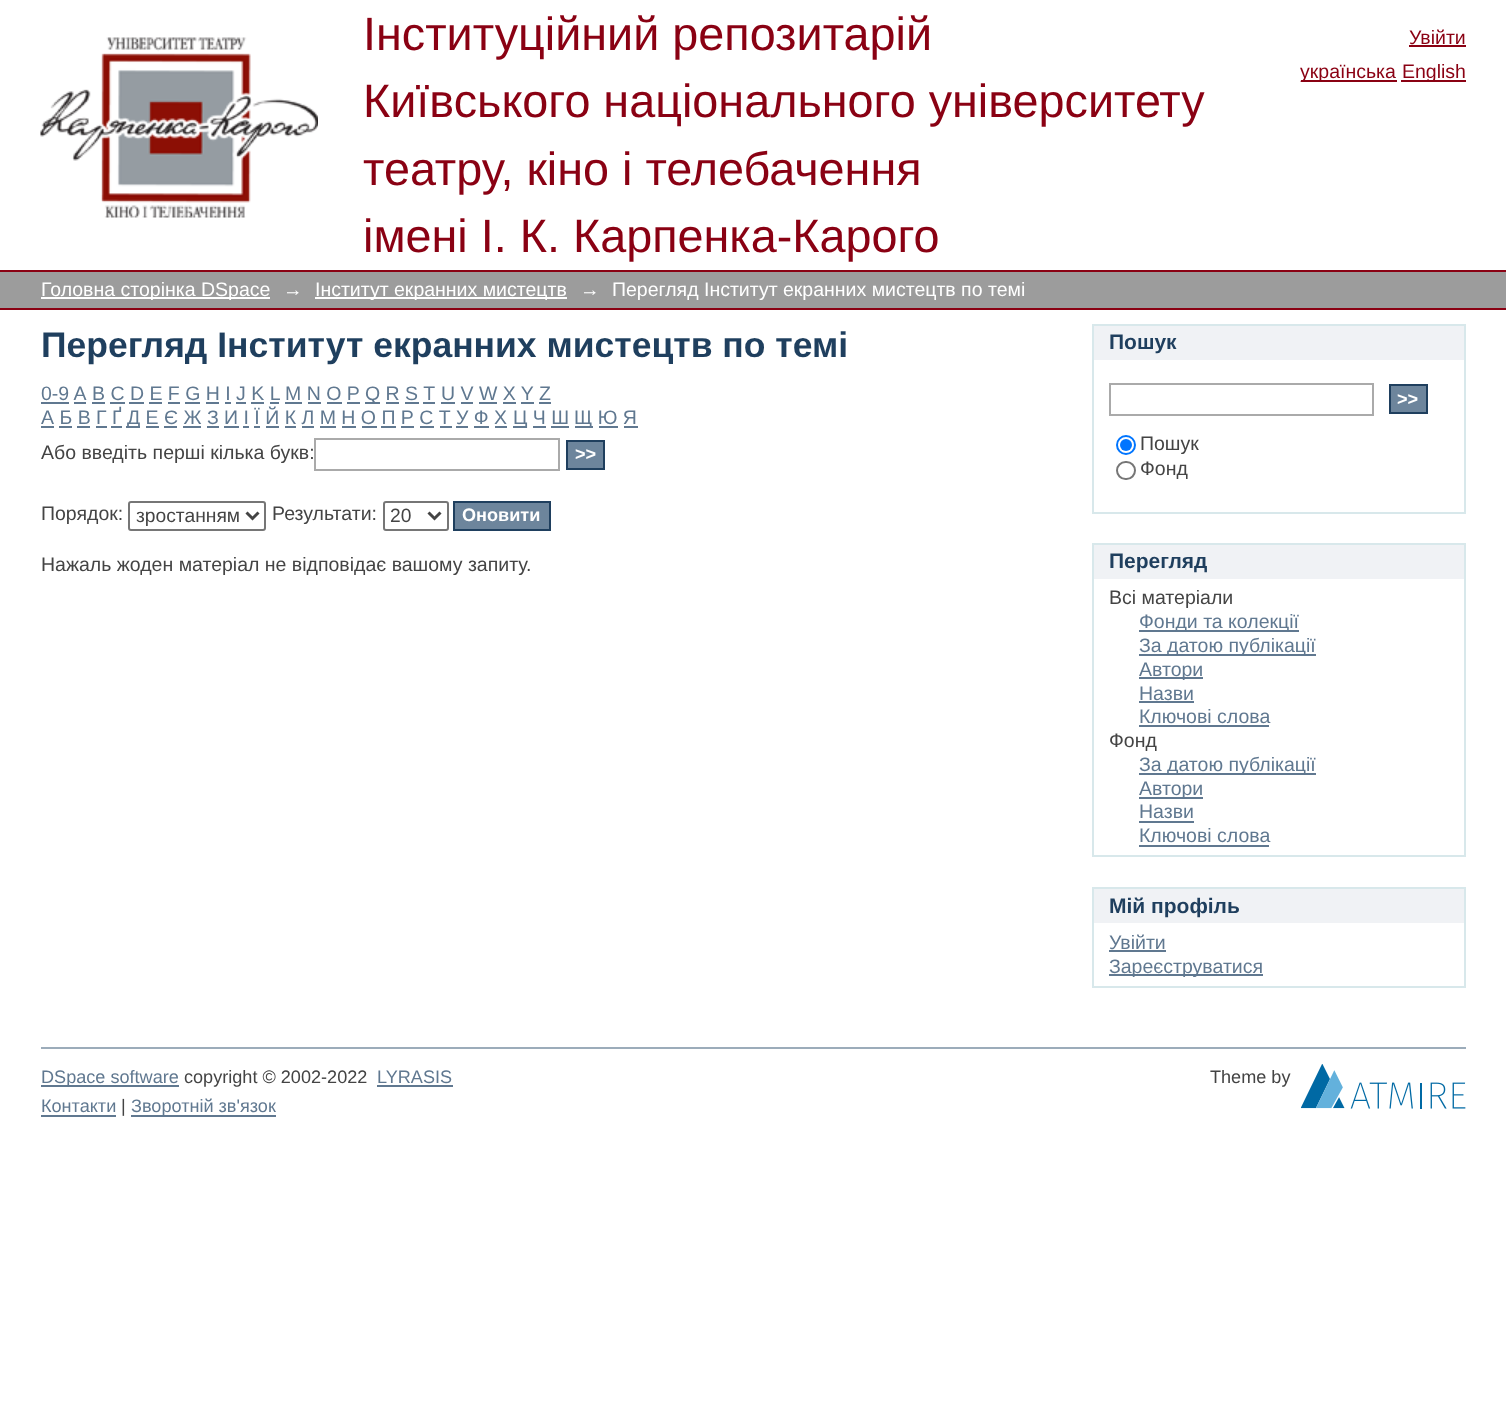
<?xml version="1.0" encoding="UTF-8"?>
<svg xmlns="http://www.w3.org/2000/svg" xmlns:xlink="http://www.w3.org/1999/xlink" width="1506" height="1405">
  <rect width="100%" height="100%" fill="#ffffff" />
  <image x="40" y="37" width="278" height="181" xlink:href="image1.png" />
  <rect x="1409" y="45" width="57" height="2" fill="#8a0113" />
  <rect x="1301" y="80" width="96" height="2" fill="#8a0113" />
  <rect x="1401" y="80" width="65" height="2" fill="#8a0113" />
  <rect y="272" width="1506" height="36" fill="#9c9c9c" />
  <rect y="270" width="1506" height="2" fill="#8a0113" />
  <rect y="308" width="1506" height="2" fill="#8a0113" />
  <rect x="41" y="297" width="229" height="2" fill="#ffffff" />
  <rect x="315" y="297" width="252" height="2" fill="#ffffff" />
  <rect x="41" y="402" width="28" height="2" fill="#607890" />
  <rect x="92" y="402" width="13" height="2" fill="#607890" />
  <rect x="285" y="402" width="17" height="2" fill="#607890" />
  <rect x="365" y="402" width="15" height="2" fill="#607890" />
  <rect x="441" y="402" width="14" height="2" fill="#607890" />
  <rect x="539" y="402" width="12" height="2" fill="#607890" />
  <rect x="74" y="402" width="12" height="2" fill="#607890" />
  <rect x="110" y="402" width="15" height="2" fill="#607890" />
  <rect x="129" y="402" width="15" height="2" fill="#607890" />
  <rect x="149" y="402" width="13" height="2" fill="#607890" />
  <rect x="168" y="402" width="12" height="2" fill="#607890" />
  <rect x="185" y="402" width="15" height="2" fill="#607890" />
  <rect x="206" y="402" width="13" height="2" fill="#607890" />
  <rect x="225" y="402" width="6" height="2" fill="#607890" />
  <rect x="236" y="402" width="10" height="2" fill="#607890" />
  <rect x="251" y="402" width="13" height="2" fill="#607890" />
  <rect x="270" y="402" width="9" height="2" fill="#607890" />
  <rect x="308" y="402" width="13" height="2" fill="#607890" />
  <rect x="327" y="402" width="15" height="2" fill="#607890" />
  <rect x="347" y="402" width="13" height="2" fill="#607890" />
  <rect x="386" y="402" width="13" height="2" fill="#607890" />
  <rect x="405" y="402" width="14" height="2" fill="#607890" />
  <rect x="423" y="402" width="12" height="2" fill="#607890" />
  <rect x="461" y="402" width="12" height="2" fill="#607890" />
  <rect x="479" y="402" width="18" height="2" fill="#607890" />
  <rect x="503" y="402" width="13" height="2" fill="#607890" />
  <rect x="521" y="402" width="13" height="2" fill="#607890" />
  <rect x="41" y="426" width="13" height="2" fill="#607890" />
  <rect x="126" y="426" width="14" height="2" fill="#607890" />
  <rect x="513" y="426" width="14" height="2" fill="#607890" />
  <rect x="575" y="426" width="18" height="2" fill="#607890" />
  <rect x="59" y="426" width="13" height="2" fill="#607890" />
  <rect x="77" y="426" width="13" height="2" fill="#607890" />
  <rect x="96" y="426" width="11" height="2" fill="#607890" />
  <rect x="111" y="426" width="11" height="2" fill="#607890" />
  <rect x="146" y="426" width="13" height="2" fill="#607890" />
  <rect x="164" y="426" width="13" height="2" fill="#607890" />
  <rect x="183" y="426" width="18" height="2" fill="#607890" />
  <rect x="207" y="426" width="12" height="2" fill="#607890" />
  <rect x="224" y="426" width="15" height="2" fill="#607890" />
  <rect x="243" y="426" width="6" height="2" fill="#607890" />
  <rect x="254" y="426" width="6" height="2" fill="#607890" />
  <rect x="266" y="426" width="13" height="2" fill="#607890" />
  <rect x="285" y="426" width="11" height="2" fill="#607890" />
  <rect x="302" y="426" width="12" height="2" fill="#607890" />
  <rect x="320" y="426" width="16" height="2" fill="#607890" />
  <rect x="342" y="426" width="14" height="2" fill="#607890" />
  <rect x="362" y="426" width="15" height="2" fill="#607890" />
  <rect x="381" y="426" width="15" height="2" fill="#607890" />
  <rect x="401" y="426" width="13" height="2" fill="#607890" />
  <rect x="420" y="426" width="14" height="2" fill="#607890" />
  <rect x="440" y="426" width="12" height="2" fill="#607890" />
  <rect x="456" y="426" width="12" height="2" fill="#607890" />
  <rect x="474" y="426" width="15" height="2" fill="#607890" />
  <rect x="495" y="426" width="12" height="2" fill="#607890" />
  <rect x="533" y="426" width="13" height="2" fill="#607890" />
  <rect x="551" y="426" width="18" height="2" fill="#607890" />
  <rect x="599" y="426" width="19" height="2" fill="#607890" />
  <rect x="624" y="426" width="14" height="2" fill="#607890" />
  <rect x="315" y="439" width="244" height="31" fill="none" stroke="#aaaaaa" stroke-width="2" />
  <rect x="567" y="441" width="37" height="28" fill="#6d859c" stroke="#1f3f5e" stroke-width="2" />
  <rect x="129" y="502" width="136" height="28" rx="2" fill="none" stroke="#767676" stroke-width="2" />
  <path d="M 246.5 512.5 l 6 6 l 6 -6" fill="none" stroke="#444444" stroke-width="3" />
  <rect x="384" y="502" width="64" height="28" rx="2" fill="none" stroke="#767676" stroke-width="2" />
  <path d="M 428.5 512.5 l 6 6 l 6 -6" fill="none" stroke="#444444" stroke-width="3" />
  <rect x="454" y="502" width="96" height="28" fill="#6d859c" stroke="#1f3f5e" stroke-width="2" />
  <rect x="1094" y="326" width="370" height="34" fill="#f0f2f5" />
  <rect x="1092" y="324" width="374" height="2" fill="#d8e8eb" />
  <rect x="1464" y="324" width="2" height="189" fill="#d8e8eb" />
  <rect x="1092" y="324" width="2" height="36" fill="#d8e8eb" />
  <rect x="1092" y="512" width="374" height="2" fill="#d8e8eb" />
  <rect x="1092" y="360" width="2" height="153" fill="#d8e8eb" />
  <rect x="1110" y="384" width="263" height="31" fill="none" stroke="#aaaaaa" stroke-width="2" />
  <rect x="1390" y="385" width="37" height="28" fill="#6d859c" stroke="#1f3f5e" stroke-width="2" />
  <circle cx="1126" cy="445" r="9" fill="none" stroke="#0075ff" stroke-width="2" />
  <circle cx="1126" cy="445" r="6" fill="#0075ff" />
  <rect x="1117" y="462" width="18" height="17" rx="8.5" fill="none" stroke="#767676" stroke-width="2" />
  <rect x="1094" y="545" width="370" height="34" fill="#f0f2f5" />
  <rect x="1092" y="543" width="374" height="2" fill="#d8e8eb" />
  <rect x="1464" y="543" width="2" height="314" fill="#d8e8eb" />
  <rect x="1092" y="543" width="2" height="36" fill="#d8e8eb" />
  <rect x="1092" y="855" width="374" height="2" fill="#d8e8eb" />
  <rect x="1092" y="579" width="2" height="278" fill="#d8e8eb" />
  <rect x="1139" y="630" width="160" height="2" fill="#607890" />
  <rect x="1139" y="654" width="177" height="2" fill="#607890" />
  <rect x="1139" y="677" width="64" height="2" fill="#607890" />
  <rect x="1139" y="701" width="55" height="2" fill="#607890" />
  <rect x="1139" y="725" width="130" height="2" fill="#607890" />
  <rect x="1139" y="773" width="177" height="2" fill="#607890" />
  <rect x="1139" y="797" width="64" height="2" fill="#607890" />
  <rect x="1139" y="821" width="55" height="2" fill="#607890" />
  <rect x="1139" y="845" width="130" height="2" fill="#607890" />
  <rect x="1094" y="889" width="370" height="34" fill="#f0f2f5" />
  <rect x="1092" y="887" width="374" height="2" fill="#d8e8eb" />
  <rect x="1464" y="887" width="2" height="100" fill="#d8e8eb" />
  <rect x="1092" y="887" width="2" height="36" fill="#d8e8eb" />
  <rect x="1092" y="986" width="374" height="2" fill="#d8e8eb" />
  <rect x="1092" y="923" width="2" height="64" fill="#d8e8eb" />
  <rect x="1109" y="950" width="57" height="2" fill="#607890" />
  <rect x="1109" y="974" width="154" height="2" fill="#607890" />
  <rect x="41" y="1047" width="1425" height="2" fill="#9cacba" />
  <rect x="41" y="1085" width="138" height="2" fill="#607890" />
  <rect x="377" y="1085" width="76" height="2" fill="#607890" />
  <image x="1301" y="1064" width="165" height="45" xlink:href="image2.png" />
  <rect x="41" y="1115" width="75" height="2" fill="#607890" />
  <rect x="131" y="1115" width="145" height="2" fill="#607890" />
  <text x="363" y="50" style="font-family: Liberation Sans; font-size: 46.75px; fill: #8a0113">Інституційний репозитарій</text>
  <text x="363" y="117" style="font-family: Liberation Sans; font-size: 46.75px; fill: #8a0113">Київського національного університету</text>
  <text x="363" y="185" style="font-family: Liberation Sans; font-size: 46.75px; fill: #8a0113">театру, кіно і телебачення</text>
  <text x="363" y="252" style="font-family: Liberation Sans; font-size: 46.75px; fill: #8a0113">імені І. К. Карпенка-Карого</text>
  <text x="1409" y="44" style="font-family: Liberation Sans; font-size: 19.5px; fill: #8a0113">Увійти</text>
  <text x="1300" y="78" style="font-family: Liberation Sans; font-size: 19.5px; fill: #8a0113">українська</text>
  <text x="1402" y="78" style="font-family: Liberation Sans; font-size: 19.5px; fill: #8a0113">English</text>
  <text x="41" y="296" style="font-family: Liberation Sans; font-size: 19.5px; fill: #ffffff">Головна сторінка DSpace</text>
  <text x="283" y="296" style="font-family: Liberation Sans; font-size: 19.5px; fill: #ffffff">→</text>
  <text x="315" y="296" style="font-family: Liberation Sans; font-size: 19.5px; fill: #ffffff">Інститут екранних мистецтв</text>
  <text x="580" y="296" style="font-family: Liberation Sans; font-size: 19.5px; fill: #ffffff">→</text>
  <text x="612" y="296" style="font-family: Liberation Sans; font-size: 19.5px; fill: #ffffff">Перегляд Інститут екранних мистецтв по темі</text>
  <text x="41" y="357" style="font-family: Liberation Sans; font-size: 35.5px; font-weight: bold; fill: #1f3f5e">Перегляд Інститут екранних мистецтв по темі</text>
  <text x="41" y="400" style="font-family: Liberation Sans; font-size: 19.5px; fill: #607890">0-9 A</text>
  <text x="92" y="400" style="font-family: Liberation Sans; font-size: 19.5px; fill: #607890">B C D E F G H I J K L</text>
  <text x="285" y="400" style="font-family: Liberation Sans; font-size: 19.5px; fill: #607890">M N O P</text>
  <text x="365" y="400" style="font-family: Liberation Sans; font-size: 19.5px; fill: #607890">Q R S T</text>
  <text x="441" y="400" style="font-family: Liberation Sans; font-size: 19.5px; fill: #607890">U V W X Y</text>
  <text x="539" y="400" style="font-family: Liberation Sans; font-size: 19.5px; fill: #607890">Z</text>
  <text x="41" y="424" style="font-family: Liberation Sans; font-size: 19.5px; fill: #607890">А Б В Г Ґ</text>
  <text x="127" y="424" style="font-family: Liberation Sans; font-size: 19.5px; fill: #607890">Д Е Є Ж З И І Ї Й К Л М Н О П Р С Т У Ф Х</text>
  <text x="513" y="424" style="font-family: Liberation Sans; font-size: 19.5px; fill: #607890">Ц Ч Ш</text>
  <text x="574" y="424" style="font-family: Liberation Sans; font-size: 19.5px; fill: #607890">Щ Ю Я</text>
  <text x="41" y="459" style="font-family: Liberation Sans; font-size: 19.5px; fill: #444444">Або введіть перші кілька букв:</text>
  <text x="575" y="460" style="font-family: Liberation Sans; font-size: 18.1px; font-weight: bold; fill: #ffffff">&gt;&gt;</text>
  <text x="41" y="520" style="font-family: Liberation Sans; font-size: 19.5px; fill: #444444">Порядок:</text>
  <text x="136" y="522" style="font-family: Liberation Sans; font-size: 19.25px; fill: #444444">зростанням</text>
  <text x="272" y="520" style="font-family: Liberation Sans; font-size: 19.5px; fill: #444444">Результати:</text>
  <text x="390" y="522" style="font-family: Liberation Sans; font-size: 19.25px; fill: #444444">20</text>
  <text x="462" y="521" style="font-family: Liberation Sans; font-size: 18.1px; font-weight: bold; fill: #ffffff">Оновити</text>
  <text x="41" y="571" style="font-family: Liberation Sans; font-size: 19.5px; fill: #444444">Нажаль жоден матеріал не відповідає вашому запиту.</text>
  <text x="1109" y="349" style="font-family: Liberation Sans; font-size: 21px; font-weight: bold; fill: #1f3f5e">Пошук</text>
  <text x="1397" y="405" style="font-family: Liberation Sans; font-size: 18.1px; font-weight: bold; fill: #ffffff">&gt;&gt;</text>
  <text x="1140" y="450" style="font-family: Liberation Sans; font-size: 19.5px; fill: #444444">Пошук</text>
  <text x="1140" y="475" style="font-family: Liberation Sans; font-size: 19.5px; fill: #444444">Фонд</text>
  <text x="1109" y="568" style="font-family: Liberation Sans; font-size: 21px; font-weight: bold; fill: #1f3f5e">Перегляд</text>
  <text x="1109" y="604" style="font-family: Liberation Sans; font-size: 19.5px; fill: #444444">Всі матеріали</text>
  <text x="1139" y="628" style="font-family: Liberation Sans; font-size: 19.5px; fill: #607890">Фонди та колекції</text>
  <text x="1139" y="652" style="font-family: Liberation Sans; font-size: 19.5px; fill: #607890">За датою публікації</text>
  <text x="1139" y="676" style="font-family: Liberation Sans; font-size: 19.5px; fill: #607890">Автори</text>
  <text x="1139" y="700" style="font-family: Liberation Sans; font-size: 19.5px; fill: #607890">Назви</text>
  <text x="1139" y="723" style="font-family: Liberation Sans; font-size: 19.5px; fill: #607890">Ключові слова</text>
  <text x="1109" y="747" style="font-family: Liberation Sans; font-size: 19.5px; fill: #444444">Фонд</text>
  <text x="1139" y="771" style="font-family: Liberation Sans; font-size: 19.5px; fill: #607890">За датою публікації</text>
  <text x="1139" y="795" style="font-family: Liberation Sans; font-size: 19.5px; fill: #607890">Автори</text>
  <text x="1139" y="818" style="font-family: Liberation Sans; font-size: 19.5px; fill: #607890">Назви</text>
  <text x="1139" y="842" style="font-family: Liberation Sans; font-size: 19.5px; fill: #607890">Ключові слова</text>
  <text x="1109" y="913" style="font-family: Liberation Sans; font-size: 21px; font-weight: bold; fill: #1f3f5e">Мій профіль</text>
  <text x="1109" y="949" style="font-family: Liberation Sans; font-size: 19.5px; fill: #607890">Увійти</text>
  <text x="1109" y="973" style="font-family: Liberation Sans; font-size: 19.5px; fill: #607890">Зареєструватися</text>
  <text x="41" y="1083" style="font-family: Liberation Sans; font-size: 18.1px; fill: #607890">DSpace software</text>
  <text x="184" y="1083" style="font-family: Liberation Sans; font-size: 18.1px; fill: #444444">copyright © 2002-2022</text>
  <text x="377" y="1083" style="font-family: Liberation Sans; font-size: 18.1px; fill: #607890">LYRASIS</text>
  <text x="1210" y="1083" style="font-family: Liberation Sans; font-size: 18.1px; fill: #444444">Theme by</text>
  <text x="41" y="1112" style="font-family: Liberation Sans; font-size: 18.1px; fill: #607890">Контакти</text>
  <text x="121" y="1112" style="font-family: Liberation Sans; font-size: 18.1px; fill: #444444">|</text>
  <text x="131" y="1112" style="font-family: Liberation Sans; font-size: 18.1px; fill: #607890">Зворотній зв'язок</text>
</svg>
